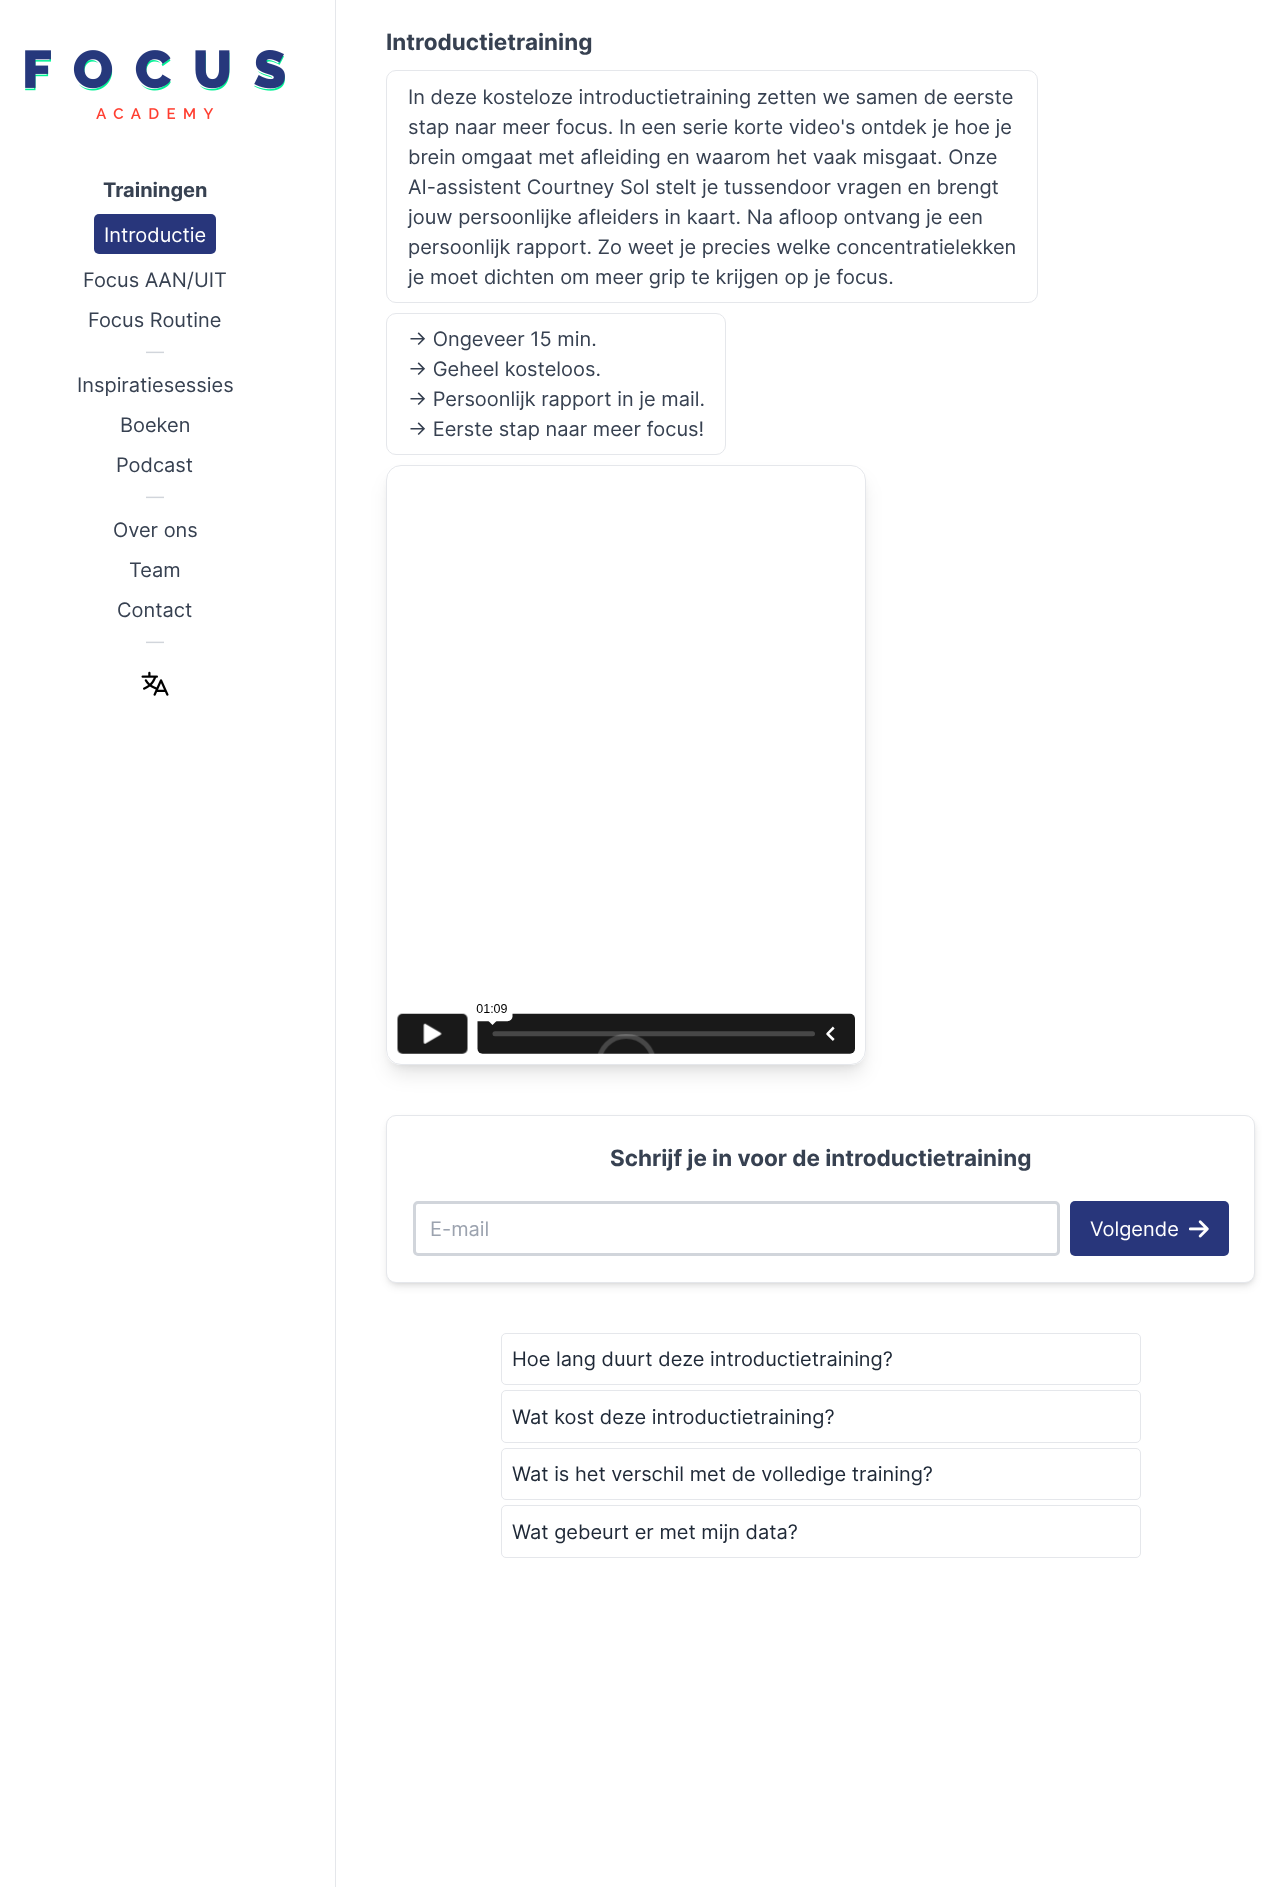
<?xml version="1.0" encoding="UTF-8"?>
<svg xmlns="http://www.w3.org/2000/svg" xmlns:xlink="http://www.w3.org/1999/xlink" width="1279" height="1887">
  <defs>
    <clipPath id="clip1"><path d="M 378 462 h 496 v 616 h -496 z m 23 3 h 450 c 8.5 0 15 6.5 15 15 v 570 c 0 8.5 -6.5 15 -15 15 h -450 c -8.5 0 -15 -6.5 -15 -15 v -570 c 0 -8.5 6.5 -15 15 -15 z" clip-rule="evenodd" /></clipPath>
    <clipPath id="clip2"><path d="M 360 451 h 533 v 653 h -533 z m 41 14 h 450 c 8.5 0 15 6.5 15 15 v 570 c 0 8.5 -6.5 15 -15 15 h -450 c -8.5 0 -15 -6.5 -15 -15 v -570 c 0 -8.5 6.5 -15 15 -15 z" clip-rule="evenodd" /></clipPath>
  </defs>
  <rect width="100%" height="100%" fill="#ffffff" />
  <rect x="335" width="1" height="1887" fill="#e5e7eb" />
  <image x="25" y="50" width="260" height="69" xlink:href="image1.png" />
  <rect x="94" y="214" width="122" height="40" rx="5" fill="#28367b" />
  <image x="141" y="671" width="28" height="25" xlink:href="image2.png" />
  <rect x="386.5" y="70.5" width="651" height="232" rx="9.5" fill="none" stroke="#e5e7eb" />
  <rect x="386.5" y="313.5" width="339" height="141" rx="9.5" fill="none" stroke="#e5e7eb" />
  <g clip-path="url(#clip1)">
    <rect x="391" y="475" width="470" height="590" rx="10" fill="#000000" fill-opacity="0.1" filter="blur(4px)" />
  </g>
  <g clip-path="url(#clip2)">
    <rect x="390" y="481" width="473" height="593" rx="11" fill="#000000" fill-opacity="0.1" filter="blur(9.5px)" />
  </g>
  <rect x="386.5" y="465.5" width="479" height="599" rx="14.5" fill="none" stroke="#e5e7eb" />
  <image x="397" y="1004" width="458" height="50" xlink:href="image3.png" />
  <rect x="389" y="1120" width="864" height="163" rx="8" fill="#000000" fill-opacity="0.1" filter="blur(2.5px)" />
  <rect x="388" y="1121" width="866" height="165" rx="9" fill="#000000" fill-opacity="0.1" filter="blur(4px)" />
  <rect x="386.5" y="1115.5" width="868" height="167" rx="9.5" fill="#ffffff" stroke="#e5e7eb" />
  <rect x="414.5" y="1202.5" width="644" height="52" rx="3.5" fill="none" stroke="#d1d5db" stroke-width="3" />
  <rect x="1070" y="1201" width="159" height="55" rx="5" fill="#28367b" />
  <image x="1189" y="1220" width="20" height="18" xlink:href="image4.png" />
  <rect x="501.5" y="1333.5" width="639" height="51" rx="4.5" fill="none" stroke="#e5e7eb" />
  <rect x="501.5" y="1390.5" width="639" height="52" rx="4.5" fill="none" stroke="#e5e7eb" />
  <rect x="501.5" y="1448.5" width="639" height="51" rx="4.5" fill="none" stroke="#e5e7eb" />
  <rect x="501.5" y="1505.5" width="639" height="52" rx="4.5" fill="none" stroke="#e5e7eb" />
  <text x="103" y="197" style="font-family: Inter; font-size: 20px; font-weight: bold; fill: #374151">Trainingen</text>
  <text x="104" y="242" style="font-family: Inter; font-size: 20px; fill: #ffffff">Introductie</text>
  <text x="83" y="287" style="font-family: Inter; font-size: 20px; fill: #374151">Focus AAN/UIT</text>
  <text x="88" y="327" style="font-family: Inter; font-size: 20px; fill: #374151">Focus Routine</text>
  <text x="146" y="358" style="font-family: Inter; font-size: 18px; fill: #d1d5db">—</text>
  <text x="77" y="392" style="font-family: Inter; font-size: 20px; fill: #374151">Inspiratiesessies</text>
  <text x="120" y="432" style="font-family: Inter; font-size: 20px; fill: #374151">Boeken</text>
  <text x="116" y="472" style="font-family: Inter; font-size: 20px; fill: #374151">Podcast</text>
  <text x="146" y="503" style="font-family: Inter; font-size: 18px; fill: #d1d5db">—</text>
  <text x="113" y="537" style="font-family: Inter; font-size: 20px; fill: #374151">Over ons</text>
  <text x="129" y="577" style="font-family: Inter; font-size: 20px; fill: #374151">Team</text>
  <text x="117" y="617" style="font-family: Inter; font-size: 20px; fill: #374151">Contact</text>
  <text x="146" y="648" style="font-family: Inter; font-size: 18px; fill: #d1d5db">—</text>
  <text x="386" y="50" style="font-family: Inter; font-size: 22.5px; font-weight: bold; fill: #374151">Introductietraining</text>
  <text x="408" y="104" style="font-family: Inter; font-size: 20px; fill: #374151">In deze kosteloze introductietraining zetten we samen de eerste</text>
  <text x="408" y="134" style="font-family: Inter; font-size: 20px; fill: #374151">stap naar meer focus. In een serie korte video's ontdek je hoe je</text>
  <text x="408" y="164" style="font-family: Inter; font-size: 20px; fill: #374151">brein omgaat met afleiding en waarom het vaak misgaat. Onze</text>
  <text x="408" y="194" style="font-family: Inter; font-size: 20px; fill: #374151">AI-assistent Courtney Sol stelt je tussendoor vragen en brengt</text>
  <text x="408" y="224" style="font-family: Inter; font-size: 20px; fill: #374151">jouw persoonlijke afleiders in kaart. Na afloop ontvang je een</text>
  <text x="408" y="254" style="font-family: Inter; font-size: 20px; fill: #374151">persoonlijk rapport. Zo weet je precies welke concentratielekken</text>
  <text x="408" y="284" style="font-family: Inter; font-size: 20px; fill: #374151">je moet dichten om meer grip te krijgen op je focus.</text>
  <text x="408" y="346" style="font-family: Inter; font-size: 20px; fill: #374151">-&gt; Ongeveer 15 min.</text>
  <text x="408" y="376" style="font-family: Inter; font-size: 20px; fill: #374151">-&gt; Geheel kosteloos.</text>
  <text x="408" y="406" style="font-family: Inter; font-size: 20px; fill: #374151">-&gt; Persoonlijk rapport in je mail.</text>
  <text x="408" y="436" style="font-family: Inter; font-size: 20px; fill: #374151">-&gt; Eerste stap naar meer focus!</text>
  <text x="610" y="1166" style="font-family: Inter; font-size: 22.5px; font-weight: bold; fill: #374151">Schrijf je in voor de introductietraining</text>
  <text x="430" y="1236" style="font-family: Inter; font-size: 20px; fill: #9ca3af">E-mail</text>
  <text x="1090" y="1236" style="font-family: Inter; font-size: 20px; fill: #ffffff">Volgende</text>
  <text x="512" y="1366" style="font-family: Inter; font-size: 20px; fill: #1f2937">Hoe lang duurt deze introductietraining?</text>
  <text x="512" y="1424" style="font-family: Inter; font-size: 20px; fill: #1f2937">Wat kost deze introductietraining?</text>
  <text x="512" y="1481" style="font-family: Inter; font-size: 20px; fill: #1f2937">Wat is het verschil met de volledige training?</text>
  <text x="512" y="1539" style="font-family: Inter; font-size: 20px; fill: #1f2937">Wat gebeurt er met mijn data?</text>
</svg>
